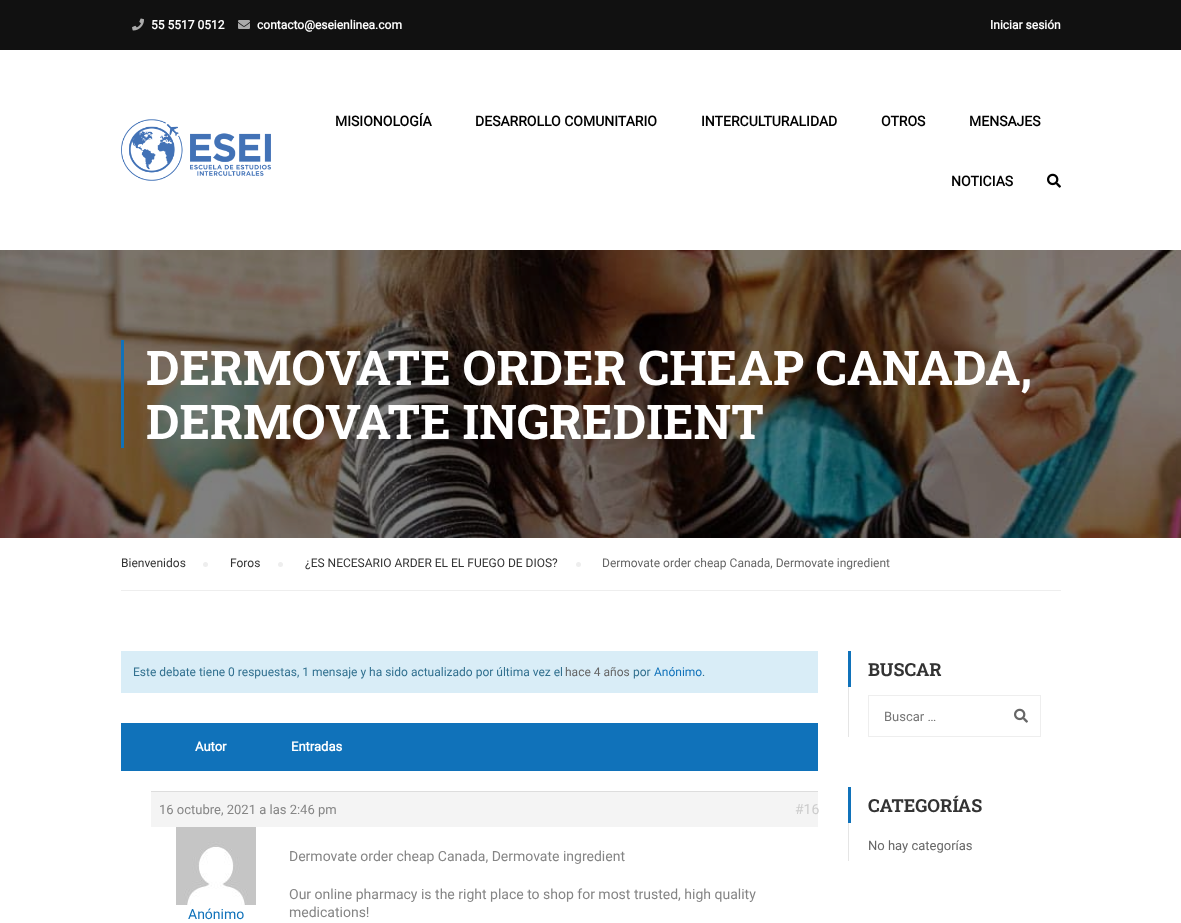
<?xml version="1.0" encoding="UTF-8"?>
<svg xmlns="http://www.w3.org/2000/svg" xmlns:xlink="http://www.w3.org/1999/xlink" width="1181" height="923">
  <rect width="100%" height="100%" fill="#ffffff" />
  <rect width="1181" height="50" fill="#111111" />
  <image x="132" y="18" width="12" height="13" xlink:href="image1.png" />
  <image x="238" y="20" width="12" height="9" xlink:href="image2.png" />
  <image x="121" y="119" width="150" height="62" xlink:href="image3.png" />
  <image x="1047" y="173" width="14" height="15" xlink:href="image4.png" />
  <image x="0" y="250" width="1181" height="288" xlink:href="image5.png" />
  <rect x="121" y="340" width="3" height="108" fill="#1072ba" />
  <rect x="121" y="590" width="940" height="1" fill="#eeeeee" />
  <circle cx="205.5" cy="564.5" r="2.5" fill="#eeeeee" />
  <circle cx="280.5" cy="564.5" r="2.5" fill="#eeeeee" />
  <circle cx="578.5" cy="564.5" r="2.5" fill="#eeeeee" />
  <rect x="121" y="651" width="697" height="42" fill="#d9edf7" />
  <rect x="121" y="723" width="697" height="48" fill="#1072ba" />
  <rect x="151" y="792" width="667" height="35" fill="#f4f4f4" />
  <rect x="151" y="791" width="667" height="1" fill="#dddddd" />
  <image x="176" y="827" width="80" height="78" xlink:href="image6.png" />
  <rect x="848" y="651" width="3" height="36" fill="#1072ba" />
  <rect x="848" y="687" width="1" height="50" fill="#e5e5e5" />
  <rect x="868.5" y="695.5" width="172" height="41" fill="none" stroke="#eeeeee" />
  <image x="1014" y="708" width="14" height="15" xlink:href="image7.png" />
  <rect x="848" y="787" width="3" height="36" fill="#1072ba" />
  <rect x="848" y="823" width="1" height="38" fill="#e5e5e5" />
  <text x="151" y="29" style="font-family: Roboto; font-size: 12px; font-weight: bold; fill: #ffffff">55 5517 0512</text>
  <text x="257" y="29" style="font-family: Roboto; font-size: 12px; font-weight: bold; fill: #ffffff">contacto@eseienlinea.com</text>
  <text x="990" y="29" style="font-family: Roboto; font-size: 12px; font-weight: bold; fill: #ffffff">Iniciar sesión</text>
  <text x="335" y="126" style="font-family: Roboto; font-size: 14px; font-weight: bold; fill: #000000">MISIONOLOGÍA</text>
  <text x="475" y="126" style="font-family: Roboto; font-size: 14px; font-weight: bold; fill: #000000">DESARROLLO COMUNITARIO</text>
  <text x="701" y="126" style="font-family: Roboto; font-size: 14px; font-weight: bold; fill: #000000">INTERCULTURALIDAD</text>
  <text x="881" y="126" style="font-family: Roboto; font-size: 14px; font-weight: bold; fill: #000000">OTROS</text>
  <text x="969" y="126" style="font-family: Roboto; font-size: 14px; font-weight: bold; fill: #000000">MENSAJES</text>
  <text x="951" y="186" style="font-family: Roboto; font-size: 14px; font-weight: bold; fill: #000000">NOTICIAS</text>
  <text x="146" y="385" style="font-family: Roboto Slab; font-size: 48px; font-weight: bold; fill: #ffffff">DERMOVATE ORDER CHEAP CANADA,</text>
  <text x="146" y="439" style="font-family: Roboto Slab; font-size: 48px; font-weight: bold; fill: #ffffff">DERMOVATE INGREDIENT</text>
  <text x="121" y="567" style="font-family: Roboto; font-size: 12px; fill: #333333">Bienvenidos</text>
  <text x="230" y="567" style="font-family: Roboto; font-size: 12px; fill: #333333">Foros</text>
  <text x="305" y="567" style="font-family: Roboto; font-size: 12px; fill: #333333">¿ES NECESARIO ARDER EL EL FUEGO DE DIOS?</text>
  <text x="602" y="567" style="font-family: Roboto; font-size: 12px; fill: #666666">Dermovate order cheap Canada, Dermovate ingredient</text>
  <text x="133" y="676" style="font-family: Roboto; font-size: 12px; fill: #31708f">Este debate tiene 0 respuestas, 1 mensaje y ha sido actualizado por última vez el</text>
  <text x="565" y="676" style="font-family: Roboto; font-size: 12px; fill: #666666">hace 4 años</text>
  <text x="633" y="676" style="font-family: Roboto; font-size: 12px; fill: #31708f">por</text>
  <text x="654" y="676" style="font-family: Roboto; font-size: 12px; fill: #1072ba">Anónimo</text>
  <text x="702" y="676" style="font-family: Roboto; font-size: 12px; fill: #31708f">.</text>
  <text x="195" y="751" style="font-family: Roboto; font-size: 13px; font-weight: bold; fill: #ffffff">Autor</text>
  <text x="291" y="751" style="font-family: Roboto; font-size: 13px; font-weight: bold; fill: #ffffff">Entradas</text>
  <text x="159" y="814" style="font-family: Roboto; font-size: 13px; fill: #858585">16 octubre, 2021 a las 2:46 pm</text>
  <text x="795" y="814" style="font-family: Roboto; font-size: 14px; fill: #cccccc">#16</text>
  <text x="188" y="919" style="font-family: Roboto; font-size: 14px; fill: #1072ba">Anónimo</text>
  <text x="289" y="861" style="font-family: Roboto; font-size: 14px; fill: #858585">Dermovate order cheap Canada, Dermovate ingredient</text>
  <text x="289" y="899" style="font-family: Roboto; font-size: 14px; fill: #858585">Our online pharmacy is the right place to shop for most trusted, high quality</text>
  <text x="289" y="917" style="font-family: Roboto; font-size: 14px; fill: #858585">medications!</text>
  <text x="868" y="676" style="font-family: Roboto Slab; font-size: 18px; font-weight: bold; fill: #333333">BUSCAR</text>
  <text x="884" y="721" style="font-family: Roboto; font-size: 13px; fill: #757575">Buscar …</text>
  <text x="868" y="812" style="font-family: Roboto Slab; font-size: 18px; font-weight: bold; fill: #333333">CATEGORÍAS</text>
  <text x="868" y="850" style="font-family: Roboto; font-size: 13px; fill: #666666">No hay categorías</text>
</svg>
